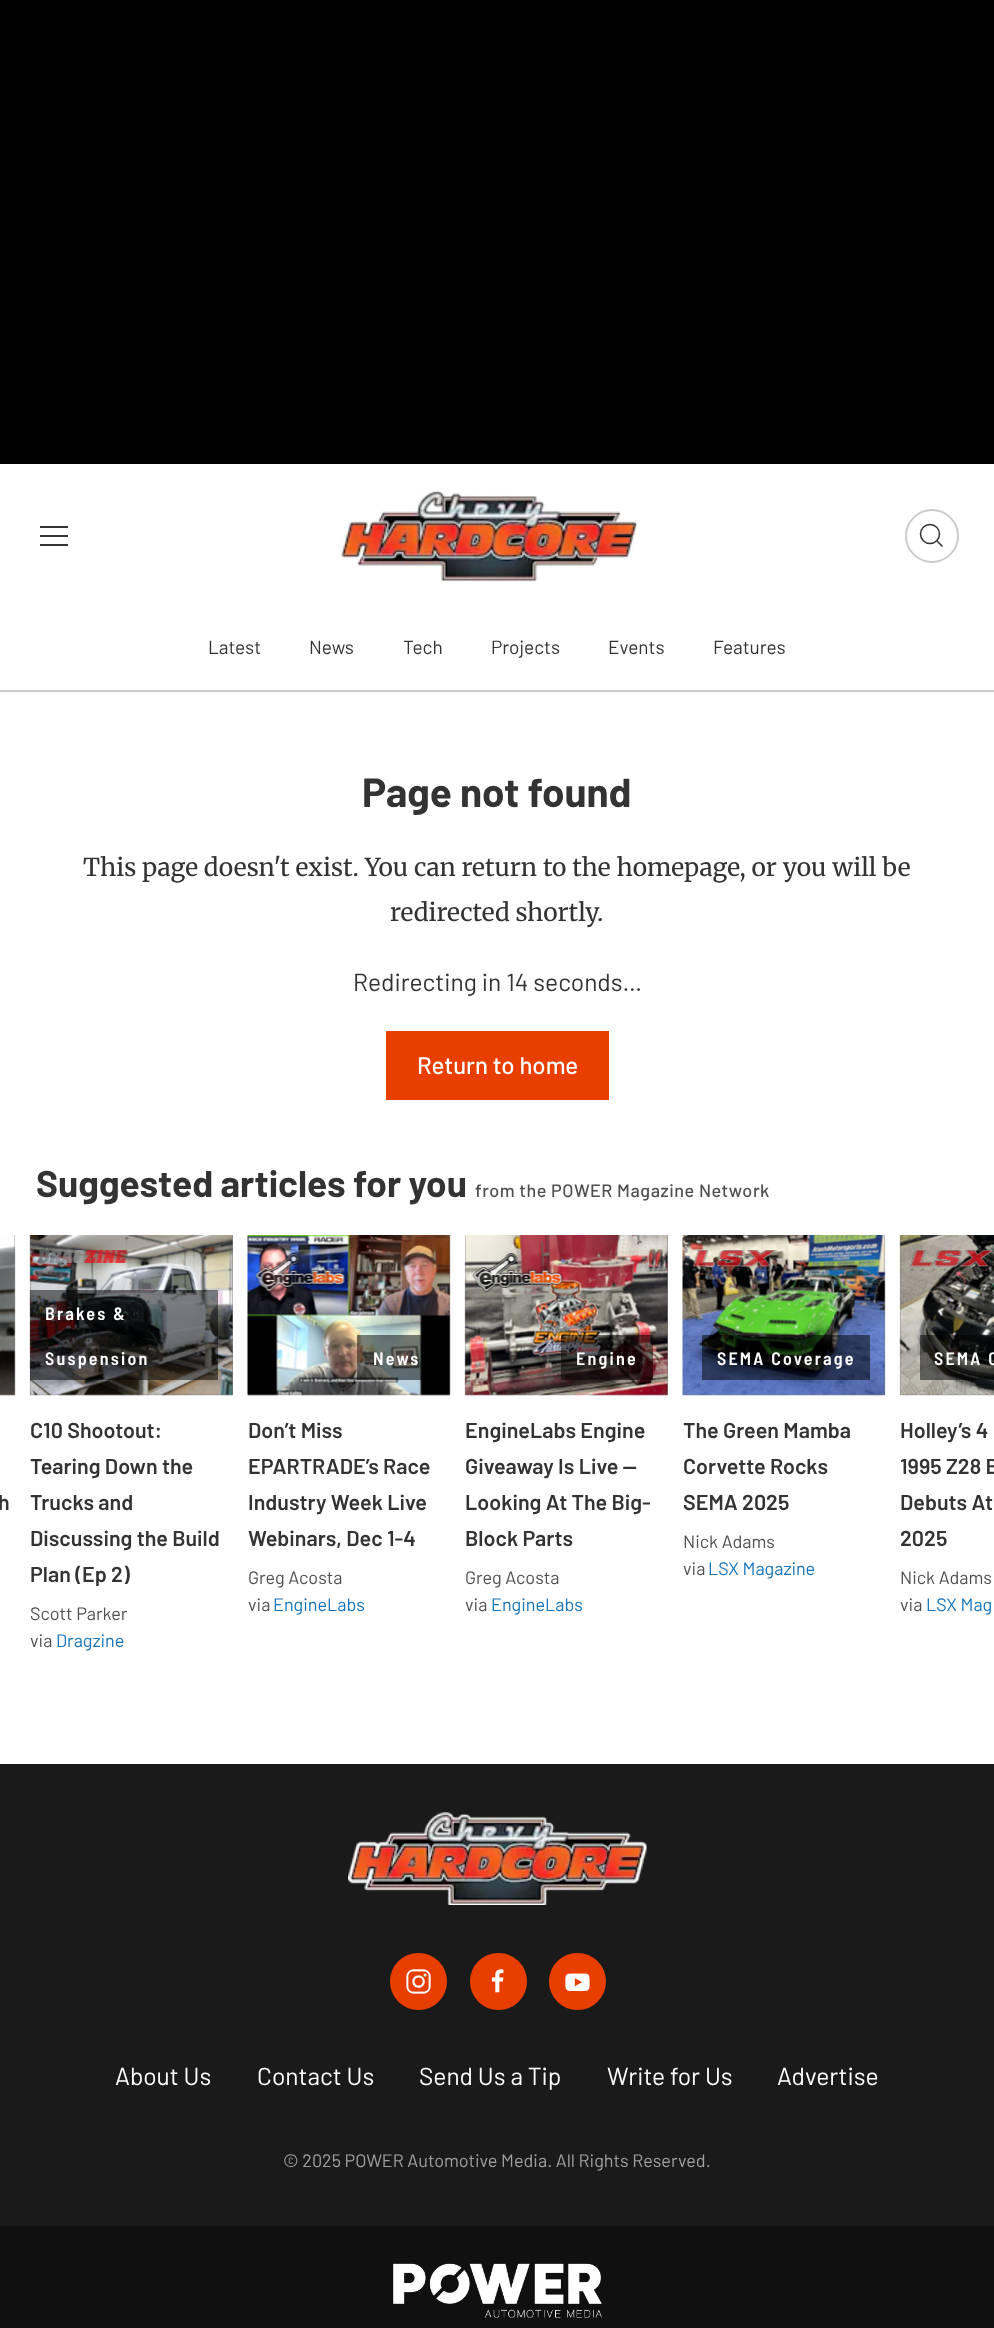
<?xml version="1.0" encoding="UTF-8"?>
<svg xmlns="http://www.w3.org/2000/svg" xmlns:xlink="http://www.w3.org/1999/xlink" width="994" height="2328">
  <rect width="100%" height="100%" fill="#ffffff" />
  <rect width="994" height="464" fill="#000000" />
  <rect y="690" width="994" height="2" fill="#cccccc" />
  <rect x="40" y="526" width="28" height="2" fill="#333333" />
  <rect x="40" y="535" width="28" height="2" fill="#333333" />
  <rect x="40" y="544" width="28" height="2" fill="#333333" />
  <image x="339" y="489" width="300" height="93" xlink:href="image1.png" />
  <circle cx="932" cy="536" r="26" fill="none" stroke="#cccccc" stroke-width="2" />
  <circle cx="930" cy="534" r="9.5" fill="none" stroke="#333333" stroke-width="1.5" />
  <path d="M 937 541 l 5.5 5.5 z" fill="none" stroke="#333333" stroke-width="1.5" />
  <rect x="386" y="1031" width="223" height="69" fill="#e83e00" />
  <rect y="1235" width="15" height="160" fill="#808080" />
  <image x="0" y="1235" width="16" height="161" xlink:href="image2.png" />
  <rect x="30" y="1235" width="203" height="160" fill="#808080" />
  <image x="29" y="1235" width="204" height="161" xlink:href="image4.png" />
  <image x="38" y="1250" width="90" height="13" xlink:href="image3.png" />
  <rect x="30" y="1290" width="188" height="90" fill="#000000" fill-opacity="0.5" />
  <rect x="248" y="1235" width="202" height="160" fill="#808080" />
  <image x="247" y="1235" width="204" height="161" xlink:href="image6.png" />
  <image x="255" y="1253" width="90" height="39" xlink:href="image5.png" />
  <rect x="357" y="1335" width="65" height="45" fill="#000000" fill-opacity="0.5" />
  <rect x="465" y="1235" width="203" height="160" fill="#808080" />
  <image x="464" y="1235" width="204" height="161" xlink:href="image8.png" />
  <image x="472" y="1253" width="91" height="40" xlink:href="image7.png" />
  <rect x="561" y="1335" width="92" height="45" fill="#000000" fill-opacity="0.5" />
  <rect x="683" y="1235" width="202" height="160" fill="#808080" />
  <image x="682" y="1235" width="204" height="161" xlink:href="image10.png" />
  <image x="692" y="1250" width="86" height="21" xlink:href="image9.png" />
  <rect x="702" y="1335" width="168" height="45" fill="#000000" fill-opacity="0.5" />
  <rect x="900" y="1235" width="94" height="160" fill="#808080" />
  <image x="899" y="1235" width="95" height="161" xlink:href="image12.png" />
  <image x="909" y="1250" width="85" height="21" xlink:href="image11.png" />
  <rect x="920" y="1335" width="74" height="45" fill="#000000" fill-opacity="0.5" />
  <rect y="1764" width="994" height="462" fill="#1a1a1a" />
  <image x="348" y="1812" width="299" height="93" xlink:href="image13.png" />
  <circle cx="418.5" cy="1981.5" r="27.5" fill="#e83e00" stroke="#e83e00" stroke-width="2" />
  <image x="406" y="1969" width="25" height="25" xlink:href="image14.png" />
  <circle cx="498.5" cy="1981.5" r="27.5" fill="#e83e00" stroke="#e83e00" stroke-width="2" />
  <image x="491" y="1969" width="13" height="24" xlink:href="image15.png" />
  <circle cx="577.5" cy="1981.5" r="27.5" fill="#e83e00" stroke="#e83e00" stroke-width="2" />
  <image x="565" y="1973" width="25" height="19" xlink:href="image16.png" />
  <rect y="2226" width="994" height="102" fill="#101010" />
  <image x="393" y="2263" width="209" height="55" xlink:href="image17.png" />
  <text x="208" y="654" style="font-family: Barlow; font-size: 19px; fill: #333333">Latest</text>
  <text x="309" y="654" style="font-family: Barlow; font-size: 19px; fill: #333333">News</text>
  <text x="403" y="654" style="font-family: Barlow; font-size: 19px; fill: #333333">Tech</text>
  <text x="491" y="654" style="font-family: Barlow; font-size: 19px; fill: #333333">Projects</text>
  <text x="608" y="654" style="font-family: Barlow; font-size: 19px; fill: #333333">Events</text>
  <text x="713" y="654" style="font-family: Barlow; font-size: 19px; fill: #333333">Features</text>
  <text x="362" y="807" style="font-family: Barlow; font-size: 40.5px; font-weight: bold; fill: #333333">Page not found</text>
  <text x="83" y="876" style="font-family: Merriweather; font-size: 24.55px; fill: #333333">This page doesn't exist. You can return to the homepage, or you will be</text>
  <text x="390" y="921" style="font-family: Merriweather; font-size: 24.55px; fill: #333333">redirected shortly.</text>
  <text x="353" y="991" style="font-family: Barlow; font-size: 24.55px; fill: #333333">Redirecting in 14 seconds…</text>
  <text x="417" y="1074" style="font-family: Barlow; font-size: 24px; font-weight: 500; fill: #ffffff">Return to home</text>
  <text x="36" y="1197" style="font-family: Barlow; font-size: 37.1px; font-weight: bold; fill: #333333">Suggested articles for you</text>
  <text x="475" y="1197" style="font-family: Barlow; font-size: 18px; font-weight: 500; letter-spacing: 0.55px; fill: #505050">from the POWER Magazine Network</text>
  <text x="-2" y="1510" style="font-family: Barlow; font-size: 21.5px; font-weight: 600; fill: #333333">h</text>
  <text x="45" y="1320" style="font-family: Barlow Semi Condensed; font-size: 18px; font-weight: 600; letter-spacing: 2.2px; fill: #ffffff">Brakes &amp;</text>
  <text x="45" y="1365" style="font-family: Barlow Semi Condensed; font-size: 18px; font-weight: 600; letter-spacing: 2.2px; fill: #ffffff">Suspension</text>
  <text x="30" y="1438" style="font-family: Barlow; font-size: 21.5px; font-weight: 600; fill: #333333">C10 Shootout:</text>
  <text x="30" y="1474" style="font-family: Barlow; font-size: 21.5px; font-weight: 600; fill: #333333">Tearing Down the</text>
  <text x="30" y="1510" style="font-family: Barlow; font-size: 21.5px; font-weight: 600; fill: #333333">Trucks and</text>
  <text x="30" y="1546" style="font-family: Barlow; font-size: 21.5px; font-weight: 600; fill: #333333">Discussing the Build</text>
  <text x="30" y="1582" style="font-family: Barlow; font-size: 21.5px; font-weight: 600; fill: #333333">Plan (Ep 2)</text>
  <text x="30" y="1620" style="font-family: Barlow; font-size: 18px; fill: #505050">Scott Parker</text>
  <text x="30" y="1647" style="font-family: Barlow; font-size: 18px; fill: #505050">via</text>
  <text x="56" y="1647" style="font-family: Barlow; font-size: 18px; fill: #1574b9">Dragzine</text>
  <text x="373" y="1365" style="font-family: Barlow Semi Condensed; font-size: 18px; font-weight: 600; letter-spacing: 2.2px; fill: #ffffff">News</text>
  <text x="248" y="1438" style="font-family: Barlow; font-size: 21.5px; font-weight: 600; fill: #333333">Don’t Miss</text>
  <text x="248" y="1474" style="font-family: Barlow; font-size: 21.5px; font-weight: 600; fill: #333333">EPARTRADE’s Race</text>
  <text x="248" y="1510" style="font-family: Barlow; font-size: 21.5px; font-weight: 600; fill: #333333">Industry Week Live</text>
  <text x="248" y="1546" style="font-family: Barlow; font-size: 21.5px; font-weight: 600; fill: #333333">Webinars, Dec 1-4</text>
  <text x="248" y="1584" style="font-family: Barlow; font-size: 18px; fill: #505050">Greg Acosta</text>
  <text x="248" y="1611" style="font-family: Barlow; font-size: 18px; fill: #505050">via</text>
  <text x="273" y="1611" style="font-family: Barlow; font-size: 18px; fill: #1574b9">EngineLabs</text>
  <text x="576" y="1365" style="font-family: Barlow Semi Condensed; font-size: 18px; font-weight: 600; letter-spacing: 2.2px; fill: #ffffff">Engine</text>
  <text x="465" y="1438" style="font-family: Barlow; font-size: 21.5px; font-weight: 600; fill: #333333">EngineLabs Engine</text>
  <text x="465" y="1474" style="font-family: Barlow; font-size: 21.5px; font-weight: 600; fill: #333333">Giveaway Is Live —</text>
  <text x="465" y="1510" style="font-family: Barlow; font-size: 21.5px; font-weight: 600; fill: #333333">Looking At The Big-</text>
  <text x="465" y="1546" style="font-family: Barlow; font-size: 21.5px; font-weight: 600; fill: #333333">Block Parts</text>
  <text x="465" y="1584" style="font-family: Barlow; font-size: 18px; fill: #505050">Greg Acosta</text>
  <text x="465" y="1611" style="font-family: Barlow; font-size: 18px; fill: #505050">via</text>
  <text x="491" y="1611" style="font-family: Barlow; font-size: 18px; fill: #1574b9">EngineLabs</text>
  <text x="717" y="1365" style="font-family: Barlow Semi Condensed; font-size: 18px; font-weight: 600; letter-spacing: 2.2px; fill: #ffffff">SEMA Coverage</text>
  <text x="683" y="1438" style="font-family: Barlow; font-size: 21.5px; font-weight: 600; fill: #333333">The Green Mamba</text>
  <text x="683" y="1474" style="font-family: Barlow; font-size: 21.5px; font-weight: 600; fill: #333333">Corvette Rocks</text>
  <text x="683" y="1510" style="font-family: Barlow; font-size: 21.5px; font-weight: 600; fill: #333333">SEMA 2025</text>
  <text x="683" y="1548" style="font-family: Barlow; font-size: 18px; fill: #505050">Nick Adams</text>
  <text x="683" y="1575" style="font-family: Barlow; font-size: 18px; fill: #505050">via</text>
  <text x="708" y="1575" style="font-family: Barlow; font-size: 18px; fill: #1574b9">LSX Magazine</text>
  <text x="934" y="1365" style="font-family: Barlow Semi Condensed; font-size: 18px; font-weight: 600; letter-spacing: 2.2px; fill: #ffffff">SEMA C</text>
  <text x="900" y="1438" style="font-family: Barlow; font-size: 21.5px; font-weight: 600; fill: #333333">Holley’s 4</text>
  <text x="900" y="1474" style="font-family: Barlow; font-size: 21.5px; font-weight: 600; fill: #333333">1995 Z28 B</text>
  <text x="900" y="1510" style="font-family: Barlow; font-size: 21.5px; font-weight: 600; fill: #333333">Debuts At</text>
  <text x="900" y="1546" style="font-family: Barlow; font-size: 21.5px; font-weight: 600; fill: #333333">2025</text>
  <text x="900" y="1584" style="font-family: Barlow; font-size: 18px; fill: #505050">Nick Adams</text>
  <text x="900" y="1611" style="font-family: Barlow; font-size: 18px; fill: #505050">via</text>
  <text x="926" y="1611" style="font-family: Barlow; font-size: 18px; fill: #1574b9">LSX Mag</text>
  <text x="115" y="2085" style="font-family: Barlow; font-size: 24.55px; fill: #ffffff">About Us</text>
  <text x="257" y="2085" style="font-family: Barlow; font-size: 24.55px; fill: #ffffff">Contact Us</text>
  <text x="419" y="2085" style="font-family: Barlow; font-size: 24.55px; fill: #ffffff">Send Us a Tip</text>
  <text x="607" y="2085" style="font-family: Barlow; font-size: 24.55px; fill: #ffffff">Write for Us</text>
  <text x="777" y="2085" style="font-family: Barlow; font-size: 24.55px; fill: #ffffff">Advertise</text>
  <text x="283" y="2167" style="font-family: Barlow; font-size: 18px; fill: #a0a0a0">© 2025 POWER Automotive Media. All Rights Reserved.</text>
</svg>
